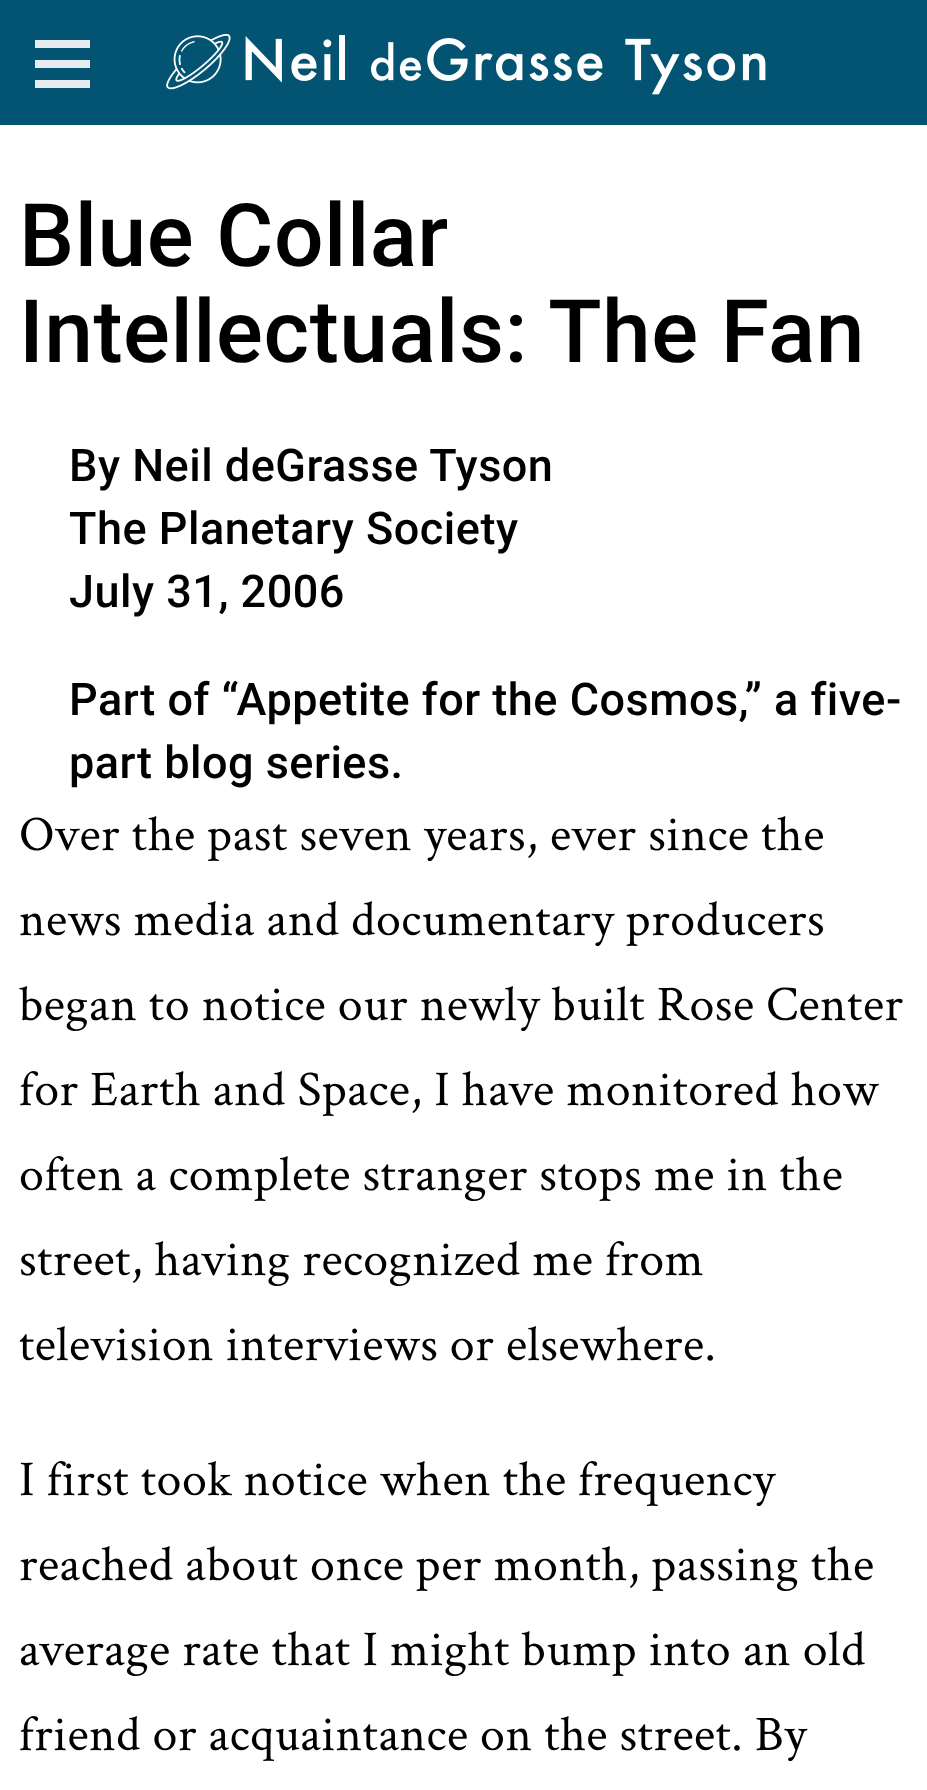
<?xml version="1.0" encoding="UTF-8"?>
<svg xmlns="http://www.w3.org/2000/svg" xmlns:xlink="http://www.w3.org/1999/xlink" width="927" height="1790">
  <rect width="100%" height="100%" fill="#ffffff" />
  <rect width="927" height="125" fill="#035473" />
  <image x="166" y="33" width="600" height="62" xlink:href="image1.png" />
  <rect x="35" y="60" width="55" height="8" fill="#e6ebf0" />
  <rect x="35" y="40" width="55" height="8" fill="#e6ebf0" />
  <rect x="35" y="80" width="55" height="8" fill="#e6ebf0" />
  <text x="19" y="266" style="font-family: Roboto; font-size: 87.5px; font-weight: 500; letter-spacing: 0.5px; fill: #000000">Blue Collar</text>
  <text x="19" y="362" style="font-family: Roboto; font-size: 87.5px; font-weight: 500; letter-spacing: 0.5px; fill: #000000">Intellectuals: The Fan</text>
  <text x="69" y="481" style="font-family: Roboto; font-size: 45px; font-weight: 500; letter-spacing: 0.5px; fill: #000000">By Neil deGrasse Tyson</text>
  <text x="69" y="544" style="font-family: Roboto; font-size: 45px; font-weight: 500; letter-spacing: 0.5px; fill: #000000">The Planetary Society</text>
  <text x="69" y="607" style="font-family: Roboto; font-size: 45px; font-weight: 500; letter-spacing: 0.5px; fill: #000000">July 31, 2006</text>
  <text x="69" y="715" style="font-family: Roboto; font-size: 45px; font-weight: 500; letter-spacing: 0.5px; fill: #000000">Part of “Appetite for the Cosmos,” a five-</text>
  <text x="69" y="778" style="font-family: Roboto; font-size: 45px; font-weight: 500; letter-spacing: 0.5px; fill: #000000">part blog series.</text>
  <text x="19" y="850" style="font-family: Crimson Text; font-size: 50px; letter-spacing: 0.5px; fill: #000000">Over the past seven years, ever since the</text>
  <text x="19" y="935" style="font-family: Crimson Text; font-size: 50px; letter-spacing: 0.5px; fill: #000000">news media and documentary producers</text>
  <text x="19" y="1020" style="font-family: Crimson Text; font-size: 50px; letter-spacing: 0.5px; fill: #000000">began to notice our newly built Rose Center</text>
  <text x="19" y="1105" style="font-family: Crimson Text; font-size: 50px; letter-spacing: 0.5px; fill: #000000">for Earth and Space, I have monitored how</text>
  <text x="19" y="1190" style="font-family: Crimson Text; font-size: 50px; letter-spacing: 0.5px; fill: #000000">often a complete stranger stops me in the</text>
  <text x="19" y="1275" style="font-family: Crimson Text; font-size: 50px; letter-spacing: 0.5px; fill: #000000">street, having recognized me from</text>
  <text x="19" y="1360" style="font-family: Crimson Text; font-size: 50px; letter-spacing: 0.5px; fill: #000000">television interviews or elsewhere.</text>
  <text x="19" y="1495" style="font-family: Crimson Text; font-size: 50px; letter-spacing: 0.5px; fill: #000000">I first took notice when the frequency</text>
  <text x="19" y="1580" style="font-family: Crimson Text; font-size: 50px; letter-spacing: 0.5px; fill: #000000">reached about once per month, passing the</text>
  <text x="19" y="1665" style="font-family: Crimson Text; font-size: 50px; letter-spacing: 0.5px; fill: #000000">average rate that I might bump into an old</text>
  <text x="19" y="1750" style="font-family: Crimson Text; font-size: 50px; letter-spacing: 0.5px; fill: #000000">friend or acquaintance on the street. By</text>
</svg>
